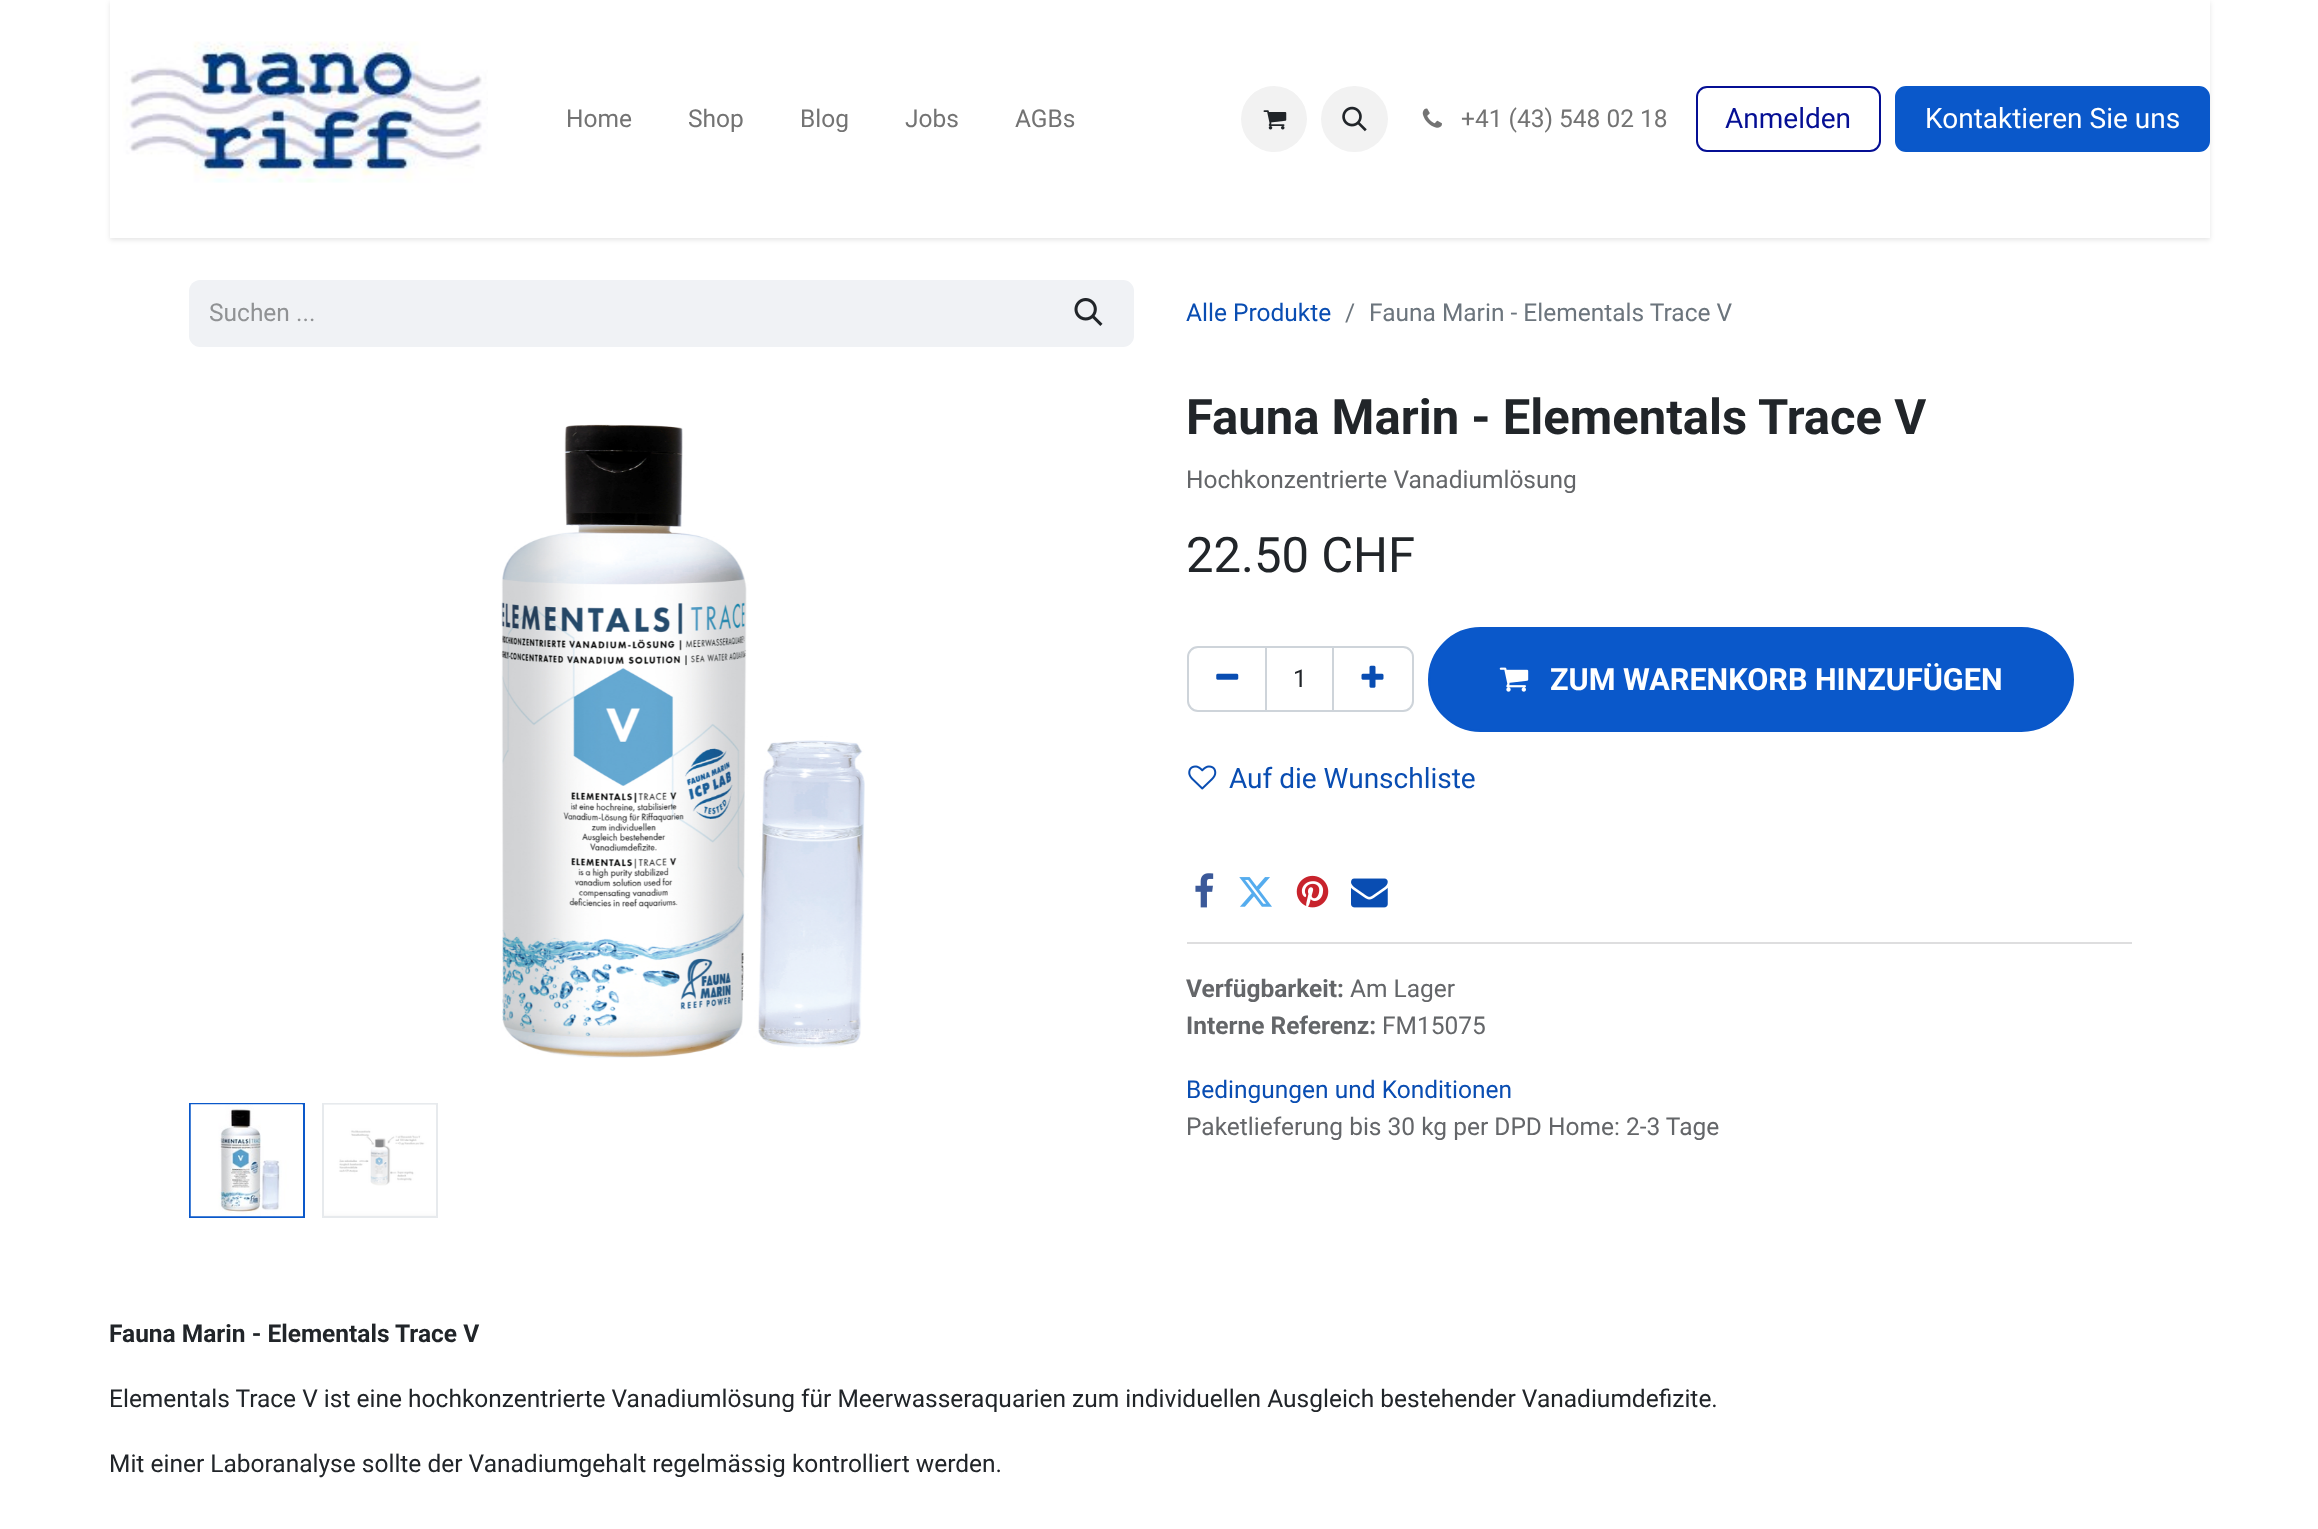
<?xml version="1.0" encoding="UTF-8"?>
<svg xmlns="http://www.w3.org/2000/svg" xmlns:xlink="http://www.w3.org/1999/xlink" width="2318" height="1529">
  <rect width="100%" height="100%" fill="#ffffff" />
  <rect x="110" y="2" width="2100" height="238" fill="#000000" fill-opacity="0.1" filter="blur(2.5px)" />
  <rect x="110" width="2100" height="238" fill="#ffffff" />
  <image x="122" y="41" width="366" height="142" xlink:href="image1.png" />
  <circle cx="1274" cy="119" r="33" fill="#f2f2f2" />
  <image x="1263" y="110" width="24" height="20" xlink:href="image2.png" />
  <rect x="1321" y="86" width="67" height="66" rx="33" fill="#f2f2f2" />
  <image x="1342" y="106" width="25" height="26" xlink:href="image3.png" />
  <image x="1422" y="108" width="20" height="20" xlink:href="image4.png" />
  <rect x="1697" y="87" width="183" height="64" rx="10" fill="none" stroke="#050f94" stroke-width="2" />
  <rect x="1896" y="87" width="313" height="64" rx="10" fill="#0a58ca" stroke="#0a58ca" stroke-width="2" />
  <path d="M 200 280 h 847 v 67 h -847 c -6 0 -11 -5 -11 -11 v -45 c 0 -6 5 -11 11 -11 z" fill="#f0f2f5" />
  <path d="M 1046 281 h 77 c 5.5 0 10 4.5 10 10 v 45 c 0 5.5 -4.5 10 -10 10 h -77 z" fill="#f0f2f5" stroke="#f0f2f5" stroke-width="2" />
  <image x="1074" y="298" width="29" height="28" xlink:href="image5.png" />
  <image x="501" y="424" width="364" height="634" xlink:href="image6.png" />
  <rect x="190" y="1104" width="114" height="113" fill="none" stroke="#0a58ca" stroke-width="2" />
  <image x="190" y="1104" width="113" height="113" xlink:href="image7.png" />
  <rect x="323" y="1104" width="114" height="113" fill="none" stroke="#e7eaed" stroke-width="2" />
  <image x="324" y="1104" width="112" height="112" xlink:href="image8.png" />
  <rect x="1266" y="647" width="67" height="64" fill="none" stroke="#ced4da" stroke-width="2" />
  <path d="M 1198 647 h 68 v 64 h -68 c -5.5 0 -10 -4.5 -10 -10 v -44 c 0 -5.5 4.5 -10 10 -10 z" fill="none" stroke="#ced4da" stroke-width="2" />
  <image x="1216" y="673" width="23" height="7" xlink:href="image9.png" />
  <path d="M 1333 647 h 70 c 5.5 0 10 4.5 10 10 v 44 c 0 5.5 -4.5 10 -10 10 h -70 z" fill="none" stroke="#ced4da" stroke-width="2" />
  <image x="1361" y="665" width="23" height="23" xlink:href="image10.png" />
  <rect x="1429" y="628" width="644" height="103" rx="51.5" fill="#0a58ca" stroke="#0a58ca" stroke-width="2" />
  <image x="1499" y="667" width="30" height="25" xlink:href="image11.png" />
  <image x="1188" y="765" width="29" height="25" xlink:href="image12.png" />
  <image x="1195" y="873" width="19" height="35" xlink:href="image13.png" />
  <image x="1239" y="877" width="33" height="30" xlink:href="image14.png" />
  <image x="1296" y="875" width="33" height="33" xlink:href="image15.png" />
  <image x="1351" y="878" width="37" height="30" xlink:href="image16.png" />
  <rect x="1187" y="942" width="945" height="2" fill="#dededf" />
  <text x="566" y="127" style="font-family: Roboto; font-size: 24.5px; fill: #737373">Home</text>
  <text x="688" y="127" style="font-family: Roboto; font-size: 24.5px; fill: #737373">Shop</text>
  <text x="800" y="127" style="font-family: Roboto; font-size: 24.5px; fill: #737373">Blog</text>
  <text x="905" y="127" style="font-family: Roboto; font-size: 24.5px; fill: #737373">Jobs</text>
  <text x="1015" y="127" style="font-family: Roboto; font-size: 24.5px; fill: #737373">AGBs</text>
  <text x="1461" y="127" style="font-family: Roboto; font-size: 24.5px; fill: #737373">+41 (43) 548 02 18</text>
  <text x="1725" y="128" style="font-family: Roboto; font-size: 28px; fill: #050f94">Anmelden</text>
  <text x="1925" y="128" style="font-family: Roboto; font-size: 28px; fill: #ffffff">Kontaktieren Sie uns</text>
  <text x="209" y="321" style="font-family: Roboto; font-size: 24.5px; fill: #909294">Suchen ...</text>
  <text x="1186" y="321" style="font-family: Roboto; font-size: 24.5px; fill: #094db2">Alle Produkte</text>
  <text x="1345" y="321" style="font-family: Roboto; font-size: 24.5px; fill: #6c757d">/</text>
  <text x="1369" y="321" style="font-family: Roboto; font-size: 24.5px; fill: #6c757d">Fauna Marin - Elementals Trace V</text>
  <text x="1186" y="434" style="font-family: Roboto; font-size: 49px; font-weight: bold; fill: #212529">Fauna Marin - Elementals Trace V</text>
  <text x="1186" y="488" style="font-family: Roboto; font-size: 24.5px; fill: #646669">Hochkonzentrierte Vanadiumlösung</text>
  <text x="1186" y="572" style="font-family: Roboto; font-size: 49px; fill: #212529">22.50 CHF</text>
  <text x="1293" y="687" style="font-family: Roboto; font-size: 24.5px; fill: #212529">1</text>
  <text x="1550" y="690" style="font-family: Roboto; font-size: 30.6px; font-weight: bold; fill: #ffffff">ZUM WARENKORB HINZUFÜGEN</text>
  <text x="1229" y="788" style="font-family: Roboto; font-size: 28px; fill: #094db2">Auf die Wunschliste</text>
  <text x="1186" y="997" style="font-family: Roboto; font-size: 24.5px; font-weight: bold; fill: #646669">Verfügbarkeit:</text>
  <text x="1350" y="997" style="font-family: Roboto; font-size: 24.5px; fill: #646669">Am Lager</text>
  <text x="1186" y="1034" style="font-family: Roboto; font-size: 24.5px; font-weight: bold; fill: #646669">Interne Referenz:</text>
  <text x="1382" y="1034" style="font-family: Roboto; font-size: 24.5px; fill: #646669">FM15075</text>
  <text x="1186" y="1098" style="font-family: Roboto; font-size: 24.5px; fill: #094db2">Bedingungen und Konditionen</text>
  <text x="1186" y="1135" style="font-family: Roboto; font-size: 24.5px; fill: #646669">Paketlieferung bis 30 kg per DPD Home: 2-3 Tage</text>
  <text x="109" y="1342" style="font-family: Roboto; font-size: 24.5px; font-weight: bold; fill: #212529">Fauna Marin - Elementals Trace V</text>
  <text x="109" y="1407" style="font-family: Roboto; font-size: 24.5px; fill: #212529">Elementals Trace V ist eine hochkonzentrierte Vanadiumlösung für Meerwasseraquarien zum individuellen Ausgleich bestehender Vanadiumdefizite.</text>
  <text x="109" y="1472" style="font-family: Roboto; font-size: 24.5px; fill: #212529">Mit einer Laboranalyse sollte der Vanadiumgehalt regelmässig kontrolliert werden.</text>
</svg>
